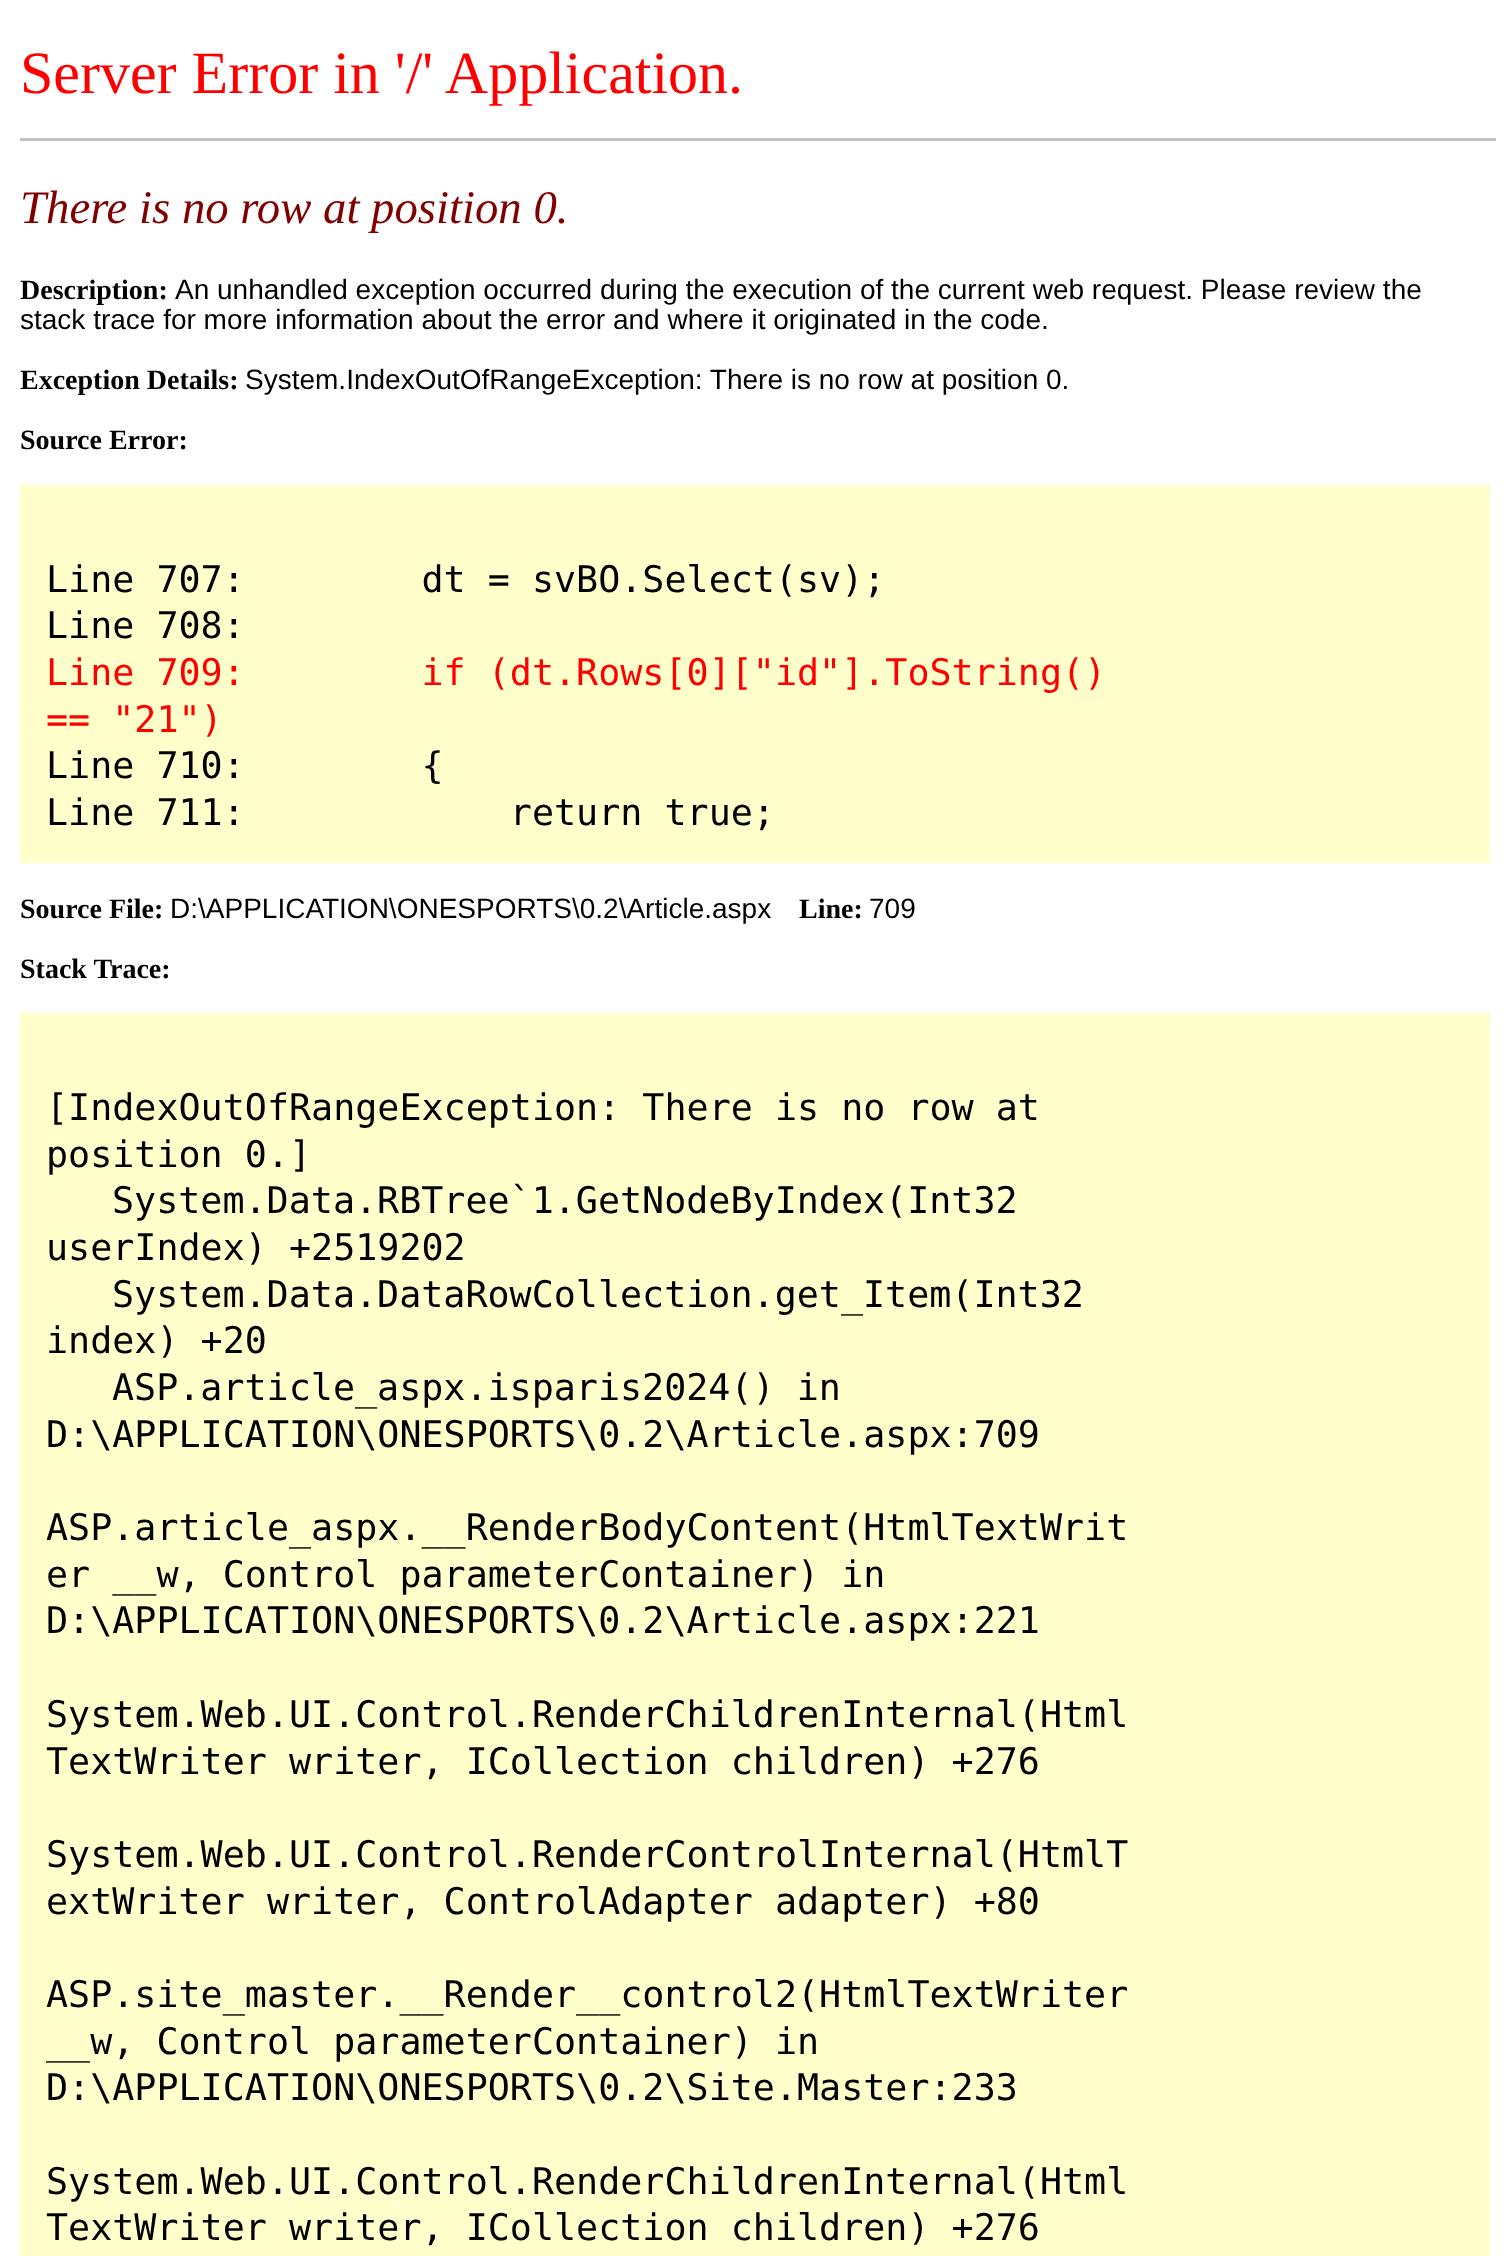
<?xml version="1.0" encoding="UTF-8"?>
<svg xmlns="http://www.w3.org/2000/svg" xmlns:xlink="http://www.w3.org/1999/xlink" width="1509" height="2256">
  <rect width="100%" height="100%" fill="#ffffff" />
  <rect x="20" y="138" width="1476" height="3" fill="#c0c0c0" />
  <rect x="20" y="485" width="1470" height="378" fill="#ffffcc" />
  <rect x="20" y="1013" width="1470" height="1243" fill="#ffffcc" />
  <text x="20" y="93" style="font-family: Liberation Serif; font-size: 60px; fill: #ff0000">Server Error in '/' Application.</text>
  <text x="20" y="223" style="font-family: Liberation Serif; font-size: 46.75px; font-style: italic; fill: #800000">There is no row at position 0.</text>
  <text x="20" y="299" style="font-family: Liberation Serif; font-size: 28px; font-weight: bold; fill: #000000">Description:</text>
  <text x="175" y="299" style="font-family: Liberation Sans; font-size: 28px; fill: #000000">An unhandled exception occurred during the execution of the current web request. Please review the</text>
  <text x="20" y="329" style="font-family: Liberation Sans; font-size: 28px; fill: #000000">stack trace for more information about the error and where it originated in the code.</text>
  <text x="20" y="389" style="font-family: Liberation Serif; font-size: 28px; font-weight: bold; fill: #000000">Exception Details:</text>
  <text x="245" y="389" style="font-family: Liberation Sans; font-size: 28px; fill: #000000">System.IndexOutOfRangeException: There is no row at position 0.</text>
  <text x="20" y="449" style="font-family: Liberation Serif; font-size: 28px; font-weight: bold; fill: #000000">Source Error:</text>
  <text x="46" y="592" style="font-family: DejaVu Sans Mono; font-size: 36.7px; fill: #000000" xml:space="preserve">Line 707:        dt = svBO.Select(sv);</text>
  <text x="46" y="638" style="font-family: DejaVu Sans Mono; font-size: 36.7px; fill: #000000">Line 708:</text>
  <text x="46" y="685" style="font-family: DejaVu Sans Mono; font-size: 36.7px; fill: #ff0000" xml:space="preserve">Line 709:        if (dt.Rows[0]["id"].ToString()</text>
  <text x="46" y="732" style="font-family: DejaVu Sans Mono; font-size: 36.7px; fill: #ff0000">== "21")</text>
  <text x="46" y="778" style="font-family: DejaVu Sans Mono; font-size: 36.7px; fill: #000000" xml:space="preserve">Line 710:        {</text>
  <text x="46" y="825" style="font-family: DejaVu Sans Mono; font-size: 36.7px; fill: #000000" xml:space="preserve">Line 711:            return true;</text>
  <text x="20" y="918" style="font-family: Liberation Serif; font-size: 28px; font-weight: bold; fill: #000000">Source File:</text>
  <text x="170" y="918" style="font-family: Liberation Sans; font-size: 28px; fill: #000000">D:\APPLICATION\ONESPORTS\0.2\Article.aspx</text>
  <text x="799" y="918" style="font-family: Liberation Serif; font-size: 28px; font-weight: bold; fill: #000000">Line:</text>
  <text x="869" y="918" style="font-family: Liberation Sans; font-size: 28px; fill: #000000">709</text>
  <text x="20" y="978" style="font-family: Liberation Serif; font-size: 28px; font-weight: bold; fill: #000000">Stack Trace:</text>
  <text x="46" y="1120" style="font-family: DejaVu Sans Mono; font-size: 36.7px; fill: #000000">[IndexOutOfRangeException: There is no row at</text>
  <text x="46" y="1167" style="font-family: DejaVu Sans Mono; font-size: 36.7px; fill: #000000">position 0.]</text>
  <text x="112" y="1213" style="font-family: DejaVu Sans Mono; font-size: 36.7px; fill: #000000">System.Data.RBTree`1.GetNodeByIndex(Int32</text>
  <text x="46" y="1260" style="font-family: DejaVu Sans Mono; font-size: 36.7px; fill: #000000">userIndex) +2519202</text>
  <text x="112" y="1307" style="font-family: DejaVu Sans Mono; font-size: 36.7px; fill: #000000">System.Data.DataRowCollection.get_Item(Int32</text>
  <text x="46" y="1353" style="font-family: DejaVu Sans Mono; font-size: 36.7px; fill: #000000">index) +20</text>
  <text x="112" y="1400" style="font-family: DejaVu Sans Mono; font-size: 36.7px; fill: #000000">ASP.article_aspx.isparis2024() in</text>
  <text x="46" y="1447" style="font-family: DejaVu Sans Mono; font-size: 36.7px; fill: #000000">D:\APPLICATION\ONESPORTS\0.2\Article.aspx:709</text>
  <text x="46" y="1540" style="font-family: DejaVu Sans Mono; font-size: 36.7px; fill: #000000">ASP.article_aspx.__RenderBodyContent(HtmlTextWrit</text>
  <text x="46" y="1587" style="font-family: DejaVu Sans Mono; font-size: 36.7px; fill: #000000">er __w, Control parameterContainer) in</text>
  <text x="46" y="1633" style="font-family: DejaVu Sans Mono; font-size: 36.7px; fill: #000000">D:\APPLICATION\ONESPORTS\0.2\Article.aspx:221</text>
  <text x="46" y="1727" style="font-family: DejaVu Sans Mono; font-size: 36.7px; fill: #000000">System.Web.UI.Control.RenderChildrenInternal(Html</text>
  <text x="46" y="1774" style="font-family: DejaVu Sans Mono; font-size: 36.7px; fill: #000000">TextWriter writer, ICollection children) +276</text>
  <text x="46" y="1867" style="font-family: DejaVu Sans Mono; font-size: 36.7px; fill: #000000">System.Web.UI.Control.RenderControlInternal(HtmlT</text>
  <text x="46" y="1914" style="font-family: DejaVu Sans Mono; font-size: 36.7px; fill: #000000">extWriter writer, ControlAdapter adapter) +80</text>
  <text x="46" y="2007" style="font-family: DejaVu Sans Mono; font-size: 36.7px; fill: #000000">ASP.site_master.__Render__control2(HtmlTextWriter</text>
  <text x="46" y="2054" style="font-family: DejaVu Sans Mono; font-size: 36.7px; fill: #000000">__w, Control parameterContainer) in</text>
  <text x="46" y="2100" style="font-family: DejaVu Sans Mono; font-size: 36.7px; fill: #000000">D:\APPLICATION\ONESPORTS\0.2\Site.Master:233</text>
  <text x="46" y="2194" style="font-family: DejaVu Sans Mono; font-size: 36.7px; fill: #000000">System.Web.UI.Control.RenderChildrenInternal(Html</text>
  <text x="46" y="2240" style="font-family: DejaVu Sans Mono; font-size: 36.7px; fill: #000000">TextWriter writer, ICollection children) +276</text>
</svg>
